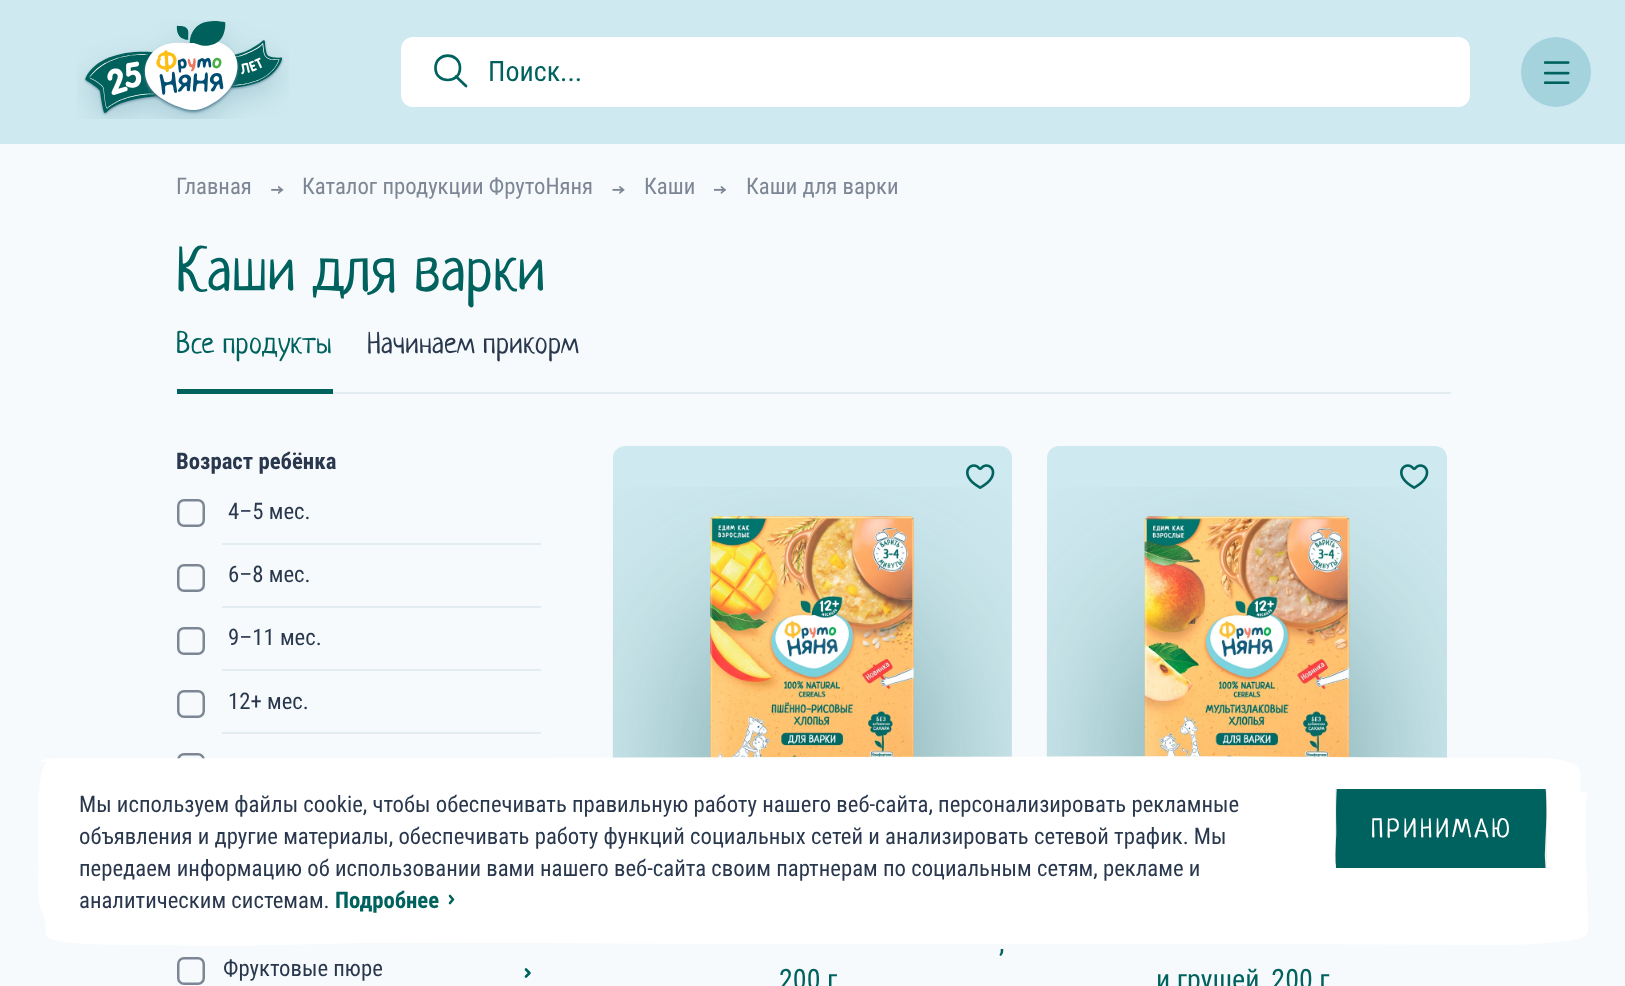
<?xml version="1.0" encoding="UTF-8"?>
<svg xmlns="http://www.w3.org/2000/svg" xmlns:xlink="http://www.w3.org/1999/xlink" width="1625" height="986">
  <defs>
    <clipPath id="clip1"><rect x="1335" y="789" width="212" height="79" /></clipPath>
  </defs>
  <rect width="100%" height="100%" fill="#f6fafc" />
  <rect width="1625" height="144" fill="#cee9ef" />
  <image x="77" y="20" width="212" height="99" xlink:href="image1.png" />
  <rect x="401" y="37" width="1069" height="70" rx="12" fill="#ffffff" />
  <path d="M 456 76.5 l 10 9.5 m -6 -18 c 0 16 -24.5 16 -24.5 0 c 0 -16.5 24.5 -16.5 24.5 0 z" fill="none" stroke="#00625e" stroke-width="2.7" stroke-linecap="round" stroke-linejoin="round" />
  <circle cx="1556" cy="72" r="35" fill="#a4d3de" />
  <image x="1544" y="61" width="26" height="23" xlink:href="image2.png" />
  <image x="271" y="186" width="13" height="8" xlink:href="image3.png" />
  <image x="612" y="186" width="13" height="8" xlink:href="image4.png" />
  <image x="714" y="186" width="13" height="8" xlink:href="image5.png" />
  <rect x="333" y="392" width="1118" height="2" fill="#e2ecf1" />
  <rect x="177" y="389" width="156" height="5" fill="#00625e" />
  <rect x="178.25" y="500.25" width="25.5" height="25.5" rx="5.75" fill="none" stroke="#7c8694" stroke-width="2.5" />
  <rect x="222" y="543" width="319" height="2" fill="#e2ecf1" />
  <rect x="178.25" y="565.25" width="25.5" height="25.5" rx="5.75" fill="none" stroke="#7c8694" stroke-width="2.5" />
  <rect x="222" y="606" width="319" height="2" fill="#e2ecf1" />
  <rect x="178.25" y="628.25" width="25.5" height="25.5" rx="5.75" fill="none" stroke="#7c8694" stroke-width="2.5" />
  <rect x="222" y="669" width="319" height="2" fill="#e2ecf1" />
  <rect x="178.25" y="691.25" width="25.5" height="25.5" rx="5.75" fill="none" stroke="#7c8694" stroke-width="2.5" />
  <rect x="222" y="732" width="319" height="2" fill="#e2ecf1" />
  <rect x="178.25" y="754.25" width="25.5" height="25.5" rx="5.75" fill="none" stroke="#7c8694" stroke-width="2.5" />
  <rect x="178.25" y="958.25" width="25.5" height="25.5" rx="5.75" fill="none" stroke="#7c8694" stroke-width="2.5" />
  <path d="M 526 976.5 l 3.5 -3.5 l -3.5 -3.5" fill="none" stroke="#00625e" stroke-width="2.6" stroke-linecap="round" stroke-linejoin="round" />
  <rect x="613" y="446" width="399" height="413" rx="12" fill="#cee9ef" />
  <image x="612" y="487" width="400" height="271" xlink:href="image7.png" />
  <image x="966" y="464" width="29" height="25" xlink:href="image6.png" />
  <rect x="1047" y="446" width="400" height="413" rx="12" fill="#cee9ef" />
  <image x="1046" y="487" width="401" height="271" xlink:href="image9.png" />
  <image x="1400" y="464" width="29" height="25" xlink:href="image8.png" />
  <image x="38" y="756" width="1550" height="190" xlink:href="image10.png" />
  <path d="M 450 903 l 3 -3.5 l -3 -3.5" fill="none" stroke="#00625e" stroke-width="2.6" stroke-linecap="round" stroke-linejoin="round" />
  <rect x="1335" y="789" width="212" height="79" fill="#efefef" />
  <g clip-path="url(#clip1)">
    <path d="M 1486 778 c -28 1 -151 -5 -149 6 c -2 33 0 45 -1 55 c 0 3 -1 23 0 26 c 0 0 0 10 1 13 c 2 11 123 0 159 5 c 4 0 44 1 47 -2 c 5 -5 1 -20 2 -30 c 1 -28 2 -32 1 -57 c 0 -4 -1 -8 -2 -10 c -2 -2 -5 -4 -7 -5 c -11 -1 -41 -1 -51 -1 z" fill="#00625e" />
  </g>
  <text x="488" y="81" style="font-family: Roboto Condensed; font-size: 28px; fill: #00625e">Поиск...</text>
  <text x="176" y="194" style="font-family: Roboto Condensed; font-size: 22.75px; fill: #7c8694">Главная</text>
  <text x="302" y="194" style="font-family: Roboto Condensed; font-size: 22.75px; fill: #7c8694">Каталог продукции ФрутоНяня</text>
  <text x="644" y="194" style="font-family: Roboto Condensed; font-size: 22.75px; fill: #7c8694">Каши</text>
  <text x="746" y="194" style="font-family: Roboto Condensed; font-size: 22.75px; fill: #7c8694">Каши для варки</text>
  <text x="176" y="290" style="font-family: Neucha; font-size: 61.25px; fill: #00625e">Каши для варки</text>
  <text x="176" y="353" style="font-family: Neucha; font-size: 29.75px; fill: #00625e">Все продукты</text>
  <text x="367" y="353" style="font-family: Neucha; font-size: 29.75px; fill: #2a384e">Начинаем прикорм</text>
  <text x="176" y="469" style="font-family: Roboto Condensed; font-size: 22.75px; font-weight: bold; fill: #2a384e">Возраст ребёнка</text>
  <text x="228" y="519" style="font-family: Roboto Condensed; font-size: 22.75px; fill: #2a384e">4–5 мес.</text>
  <text x="228" y="582" style="font-family: Roboto Condensed; font-size: 22.75px; fill: #2a384e">6–8 мес.</text>
  <text x="228" y="645" style="font-family: Roboto Condensed; font-size: 22.75px; fill: #2a384e">9–11 мес.</text>
  <text x="228" y="709" style="font-family: Roboto Condensed; font-size: 22.75px; fill: #2a384e">12+ мес.</text>
  <text x="223" y="976" style="font-family: Roboto Condensed; font-size: 22.75px; fill: #2a384e">Фруктовые пюре</text>
  <text x="999" y="952" style="font-family: Roboto Condensed; font-size: 28px; fill: #00625e">,</text>
  <text x="779" y="989" style="font-family: Roboto Condensed; font-size: 28px; fill: #00625e">200 г</text>
  <text x="1156" y="989" style="font-family: Roboto Condensed; font-size: 28px; fill: #00625e">и грушей, 200 г</text>
  <text x="79" y="812" style="font-family: Roboto Condensed; font-size: 22.75px; fill: #2a384e">Мы используем файлы cookie, чтобы обеспечивать правильную работу нашего веб-сайта, персонализировать рекламные</text>
  <text x="79" y="844" style="font-family: Roboto Condensed; font-size: 22.75px; fill: #2a384e">объявления и другие материалы, обеспечивать работу функций социальных сетей и анализировать сетевой трафик. Мы</text>
  <text x="79" y="876" style="font-family: Roboto Condensed; font-size: 22.75px; fill: #2a384e">передаем информацию об использовании вами нашего веб-сайта своим партнерам по социальным сетям, рекламе и</text>
  <text x="79" y="908" style="font-family: Roboto Condensed; font-size: 22.75px; fill: #2a384e">аналитическим системам.</text>
  <text x="335" y="908" style="font-family: Roboto Condensed; font-size: 22.75px; font-weight: bold; fill: #00625e">Подробнее</text>
  <text x="1371" y="837" style="font-family: Neucha; font-size: 26.25px; letter-spacing: 3.25px; fill: #ffffff">ПРИНИМАЮ</text>
</svg>
